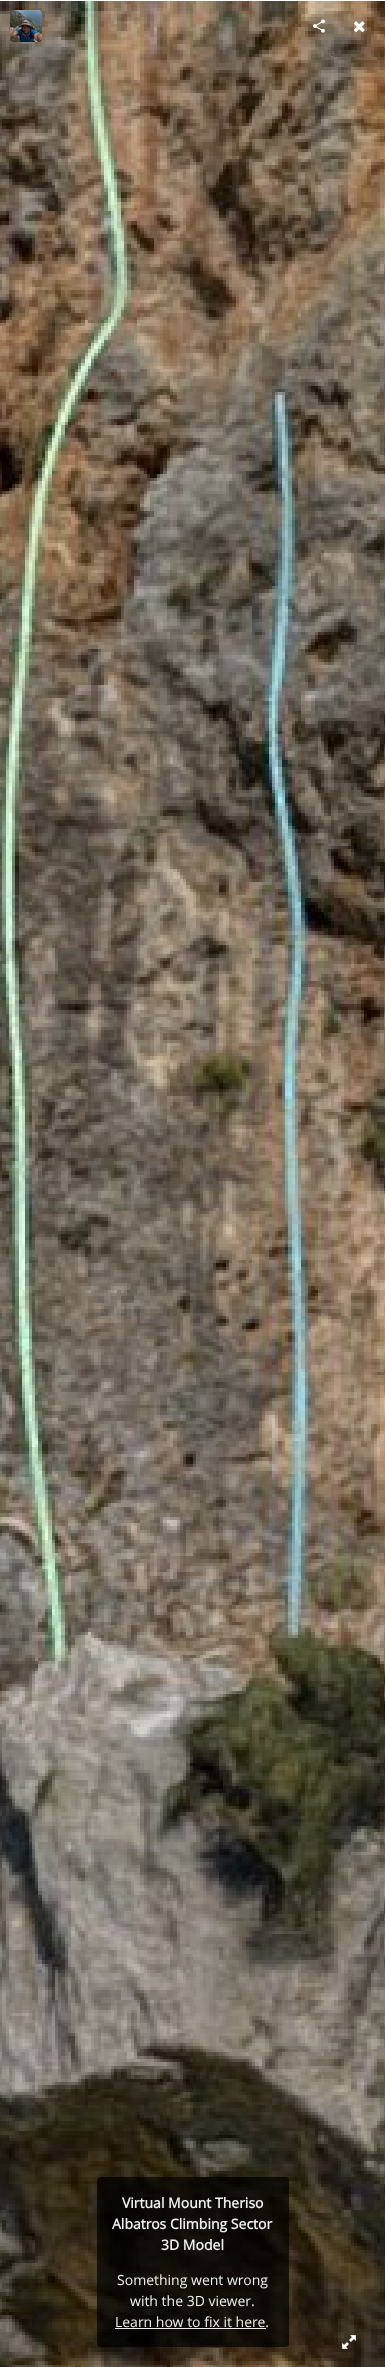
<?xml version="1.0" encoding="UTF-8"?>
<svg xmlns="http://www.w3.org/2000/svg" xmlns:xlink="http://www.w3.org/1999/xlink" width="385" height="2367">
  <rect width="100%" height="100%" fill="#ffffff" />
  <image x="0" y="1" width="385" height="2366" xlink:href="image4.png" />
  <image x="10" y="10" width="32" height="32" xlink:href="image1.png" />
  <image x="354" y="21" width="11" height="11" xlink:href="image2.png" />
  <image x="313" y="19" width="12" height="14" xlink:href="image3.png" />
  <rect x="97" y="2177" width="192" height="170" rx="4" fill="#000000" fill-opacity="0.7" />
  <rect x="115" y="2328" width="151" height="1" fill="#efefef" />
  <image x="342" y="2335" width="14" height="14" xlink:href="image5.png" />
  <text x="328" y="57" style="font-family: Open Sans; font-size: 12px; fill: #7e6f5f">e</text>
  <text x="122" y="2208" style="font-family: Open Sans; font-size: 14px; font-weight: bold; fill: #efefef">Virtual Mount Theriso</text>
  <text x="112" y="2229" style="font-family: Open Sans; font-size: 14px; font-weight: bold; fill: #efefef">Albatros Climbing Sector</text>
  <text x="161" y="2250" style="font-family: Open Sans; font-size: 14px; font-weight: bold; fill: #efefef">3D Model</text>
  <text x="117" y="2285" style="font-family: Open Sans; font-size: 14px; fill: #efefef">Something went wrong</text>
  <text x="130" y="2306" style="font-family: Open Sans; font-size: 14px; fill: #efefef">with the 3D viewer.</text>
  <text x="115" y="2327" style="font-family: Open Sans; font-size: 14px; fill: #efefef">Learn how to fix it here.</text>
</svg>
